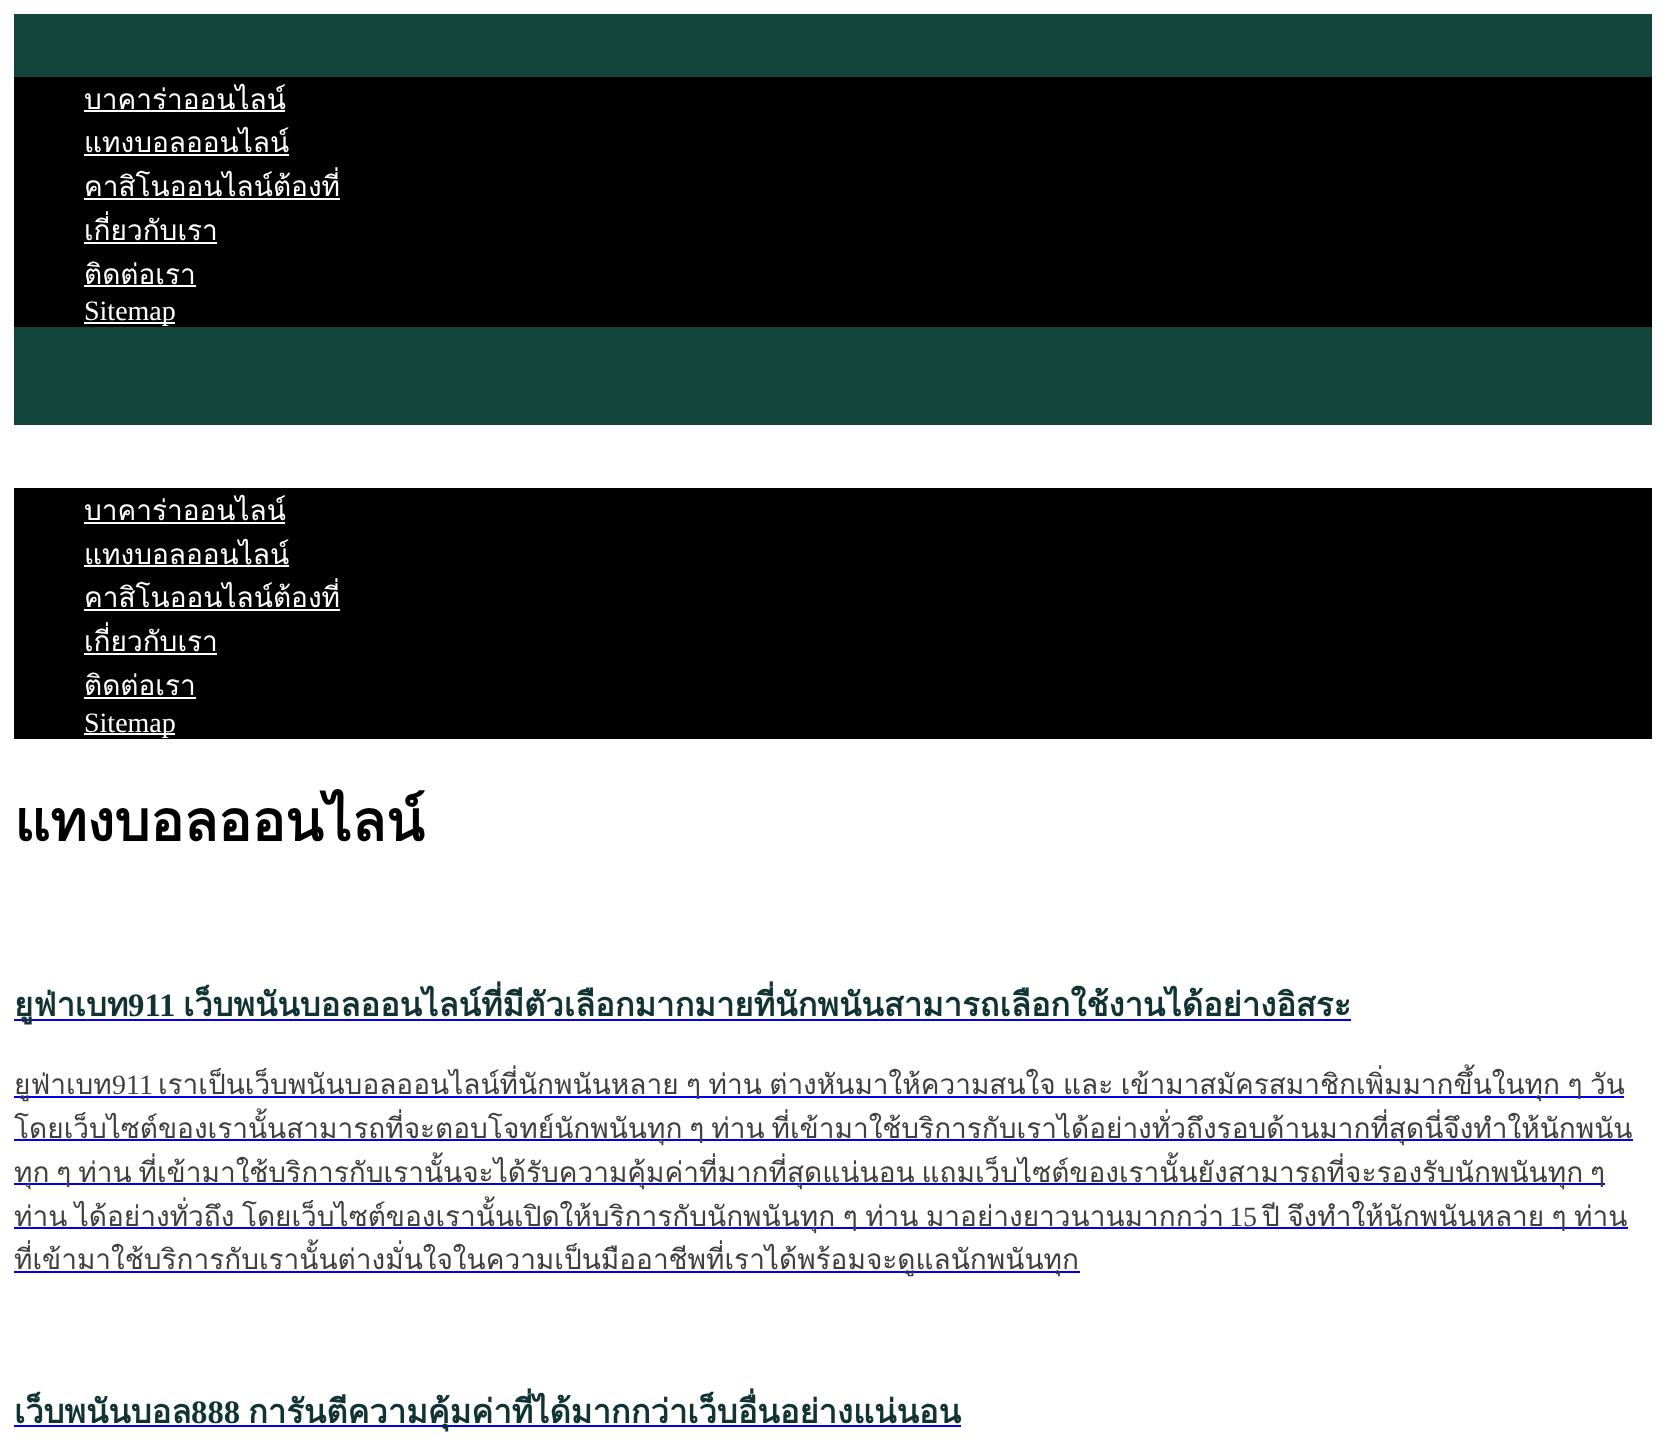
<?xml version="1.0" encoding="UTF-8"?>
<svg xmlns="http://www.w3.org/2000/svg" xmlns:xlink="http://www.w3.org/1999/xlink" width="1666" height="1451">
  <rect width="100%" height="100%" fill="#ffffff" />
  <rect x="14" y="14" width="1638" height="411" fill="#13453c" />
  <rect x="14" y="77" width="1638" height="250" fill="#000000" />
  <rect x="84" y="110" width="201" height="2" fill="#ffffff" />
  <rect x="84" y="154" width="205" height="2" fill="#ffffff" />
  <rect x="84" y="198" width="256" height="2" fill="#ffffff" />
  <rect x="84" y="242" width="133" height="2" fill="#ffffff" />
  <rect x="84" y="285" width="112" height="2" fill="#ffffff" />
  <rect x="84" y="322" width="91" height="2" fill="#ffffff" />
  <rect x="14" y="488" width="1638" height="251" fill="#000000" />
  <rect x="84" y="522" width="201" height="2" fill="#ffffff" />
  <rect x="84" y="565" width="205" height="2" fill="#ffffff" />
  <rect x="84" y="609" width="256" height="2" fill="#ffffff" />
  <rect x="84" y="653" width="133" height="2" fill="#ffffff" />
  <rect x="84" y="697" width="112" height="2" fill="#ffffff" />
  <rect x="84" y="733" width="91" height="2" fill="#ffffff" />
  <rect x="14" y="1019" width="1337" height="2" fill="#0000ee" />
  <rect x="14" y="1096" width="1610" height="2" fill="#0000ee" />
  <rect x="14" y="1139" width="1619" height="2" fill="#0000ee" />
  <rect x="14" y="1183" width="1591" height="2" fill="#0000ee" />
  <rect x="14" y="1227" width="1614" height="2" fill="#0000ee" />
  <rect x="14" y="1271" width="1066" height="2" fill="#0000ee" />
  <rect x="14" y="1425" width="947" height="2" fill="#0000ee" />
  <text x="84" y="109" style="font-family: Loma; font-size: 28px; fill: #ffffff">บาคาร่าออนไลน์</text>
  <text x="84" y="152" style="font-family: Loma; font-size: 28px; fill: #ffffff">แทงบอลออนไลน์</text>
  <text x="84" y="196" style="font-family: Loma; font-size: 28px; fill: #ffffff">คาสิโนออนไลน์ต้องที่</text>
  <text x="84" y="240" style="font-family: Loma; font-size: 28px; fill: #ffffff">เกี่ยวกับเรา</text>
  <text x="84" y="284" style="font-family: Loma; font-size: 28px; fill: #ffffff">ติดต่อเรา</text>
  <text x="84" y="320" style="font-family: Liberation Serif; font-size: 28px; fill: #ffffff">Sitemap</text>
  <text x="84" y="520" style="font-family: Loma; font-size: 28px; fill: #ffffff">บาคาร่าออนไลน์</text>
  <text x="84" y="564" style="font-family: Loma; font-size: 28px; fill: #ffffff">แทงบอลออนไลน์</text>
  <text x="84" y="607" style="font-family: Loma; font-size: 28px; fill: #ffffff">คาสิโนออนไลน์ต้องที่</text>
  <text x="84" y="651" style="font-family: Loma; font-size: 28px; fill: #ffffff">เกี่ยวกับเรา</text>
  <text x="84" y="695" style="font-family: Loma; font-size: 28px; fill: #ffffff">ติดต่อเรา</text>
  <text x="84" y="732" style="font-family: Liberation Serif; font-size: 28px; fill: #ffffff">Sitemap</text>
  <text x="14" y="841" style="font-family: Loma; font-size: 56px; font-weight: bold; fill: #000000">แทงบอลออนไลน์</text>
  <text x="14" y="1016" style="font-family: Loma; font-size: 32.75px; font-weight: bold; fill: #113334">ยูฟ่าเบท</text>
  <text x="128" y="1016" style="font-family: Liberation Serif; font-size: 32.75px; font-weight: bold; fill: #113334">911</text>
  <text x="183" y="1016" style="font-family: Loma; font-size: 32.75px; font-weight: bold; fill: #113334">เว็บพนันบอลออนไลน์ที่มีตัวเลือกมากมายที่นักพนันสามารถเลือกใช้งานได้อย่างอิสระ</text>
  <text x="14" y="1094" style="font-family: Loma; font-size: 28px; fill: #3f3f3f">ยูฟ่าเบท</text>
  <text x="112" y="1094" style="font-family: Liberation Serif; font-size: 28px; fill: #3f3f3f">911</text>
  <text x="158" y="1094" word-spacing="-2" style="font-family: Loma; font-size: 28px; fill: #3f3f3f">เราเป็นเว็บพนันบอลออนไลน์ที่นักพนันหลาย ๆ ท่าน ต่างหันมาให้ความสนใจ และ เข้ามาสมัครสมาชิกเพิ่มมากขึ้นในทุก ๆ วัน</text>
  <text x="14" y="1138" word-spacing="-2.5" style="font-family: Loma; font-size: 28px; fill: #3f3f3f">โดยเว็บไซต์ของเรานั้นสามารถที่จะตอบโจทย์นักพนันทุก ๆ ท่าน ที่เข้ามาใช้บริการกับเราได้อย่างทั่วถึงรอบด้านมากที่สุดนี่จึงทำให้นักพนัน</text>
  <text x="14" y="1182" word-spacing="-2.5" style="font-family: Loma; font-size: 28px; fill: #3f3f3f">ทุก ๆ ท่าน ที่เข้ามาใช้บริการกับเรานั้นจะได้รับความคุ้มค่าที่มากที่สุดแน่นอน แถมเว็บไซต์ของเรานั้นยังสามารถที่จะรองรับนักพนันทุก ๆ</text>
  <text x="14" y="1226" word-spacing="-2" style="font-family: Loma; font-size: 28px; fill: #3f3f3f">ท่าน ได้อย่างทั่วถึง โดยเว็บไซต์ของเรานั้นเปิดให้บริการกับนักพนันทุก ๆ ท่าน มาอย่างยาวนานมากกว่า</text>
  <text x="1229" y="1226" style="font-family: Liberation Serif; font-size: 28px; fill: #3f3f3f">15</text>
  <text x="1262" y="1226" word-spacing="-2" style="font-family: Loma; font-size: 28px; fill: #3f3f3f">ปี จึงทำให้นักพนันหลาย ๆ ท่าน</text>
  <text x="14" y="1269" style="font-family: Loma; font-size: 28px; fill: #3f3f3f">ที่เข้ามาใช้บริการกับเรานั้นต่างมั่นใจในความเป็นมืออาชีพที่เราได้พร้อมจะดูแลนักพนันทุก</text>
  <text x="14" y="1423" style="font-family: Loma; font-size: 32.75px; font-weight: bold; fill: #113334">เว็บพนันบอล</text>
  <text x="191" y="1423" style="font-family: Liberation Serif; font-size: 32.75px; font-weight: bold; fill: #113334">888</text>
  <text x="248" y="1423" style="font-family: Loma; font-size: 32.75px; font-weight: bold; fill: #113334">การันตีความคุ้มค่าที่ได้มากกว่าเว็บอื่นอย่างแน่นอน</text>
</svg>
